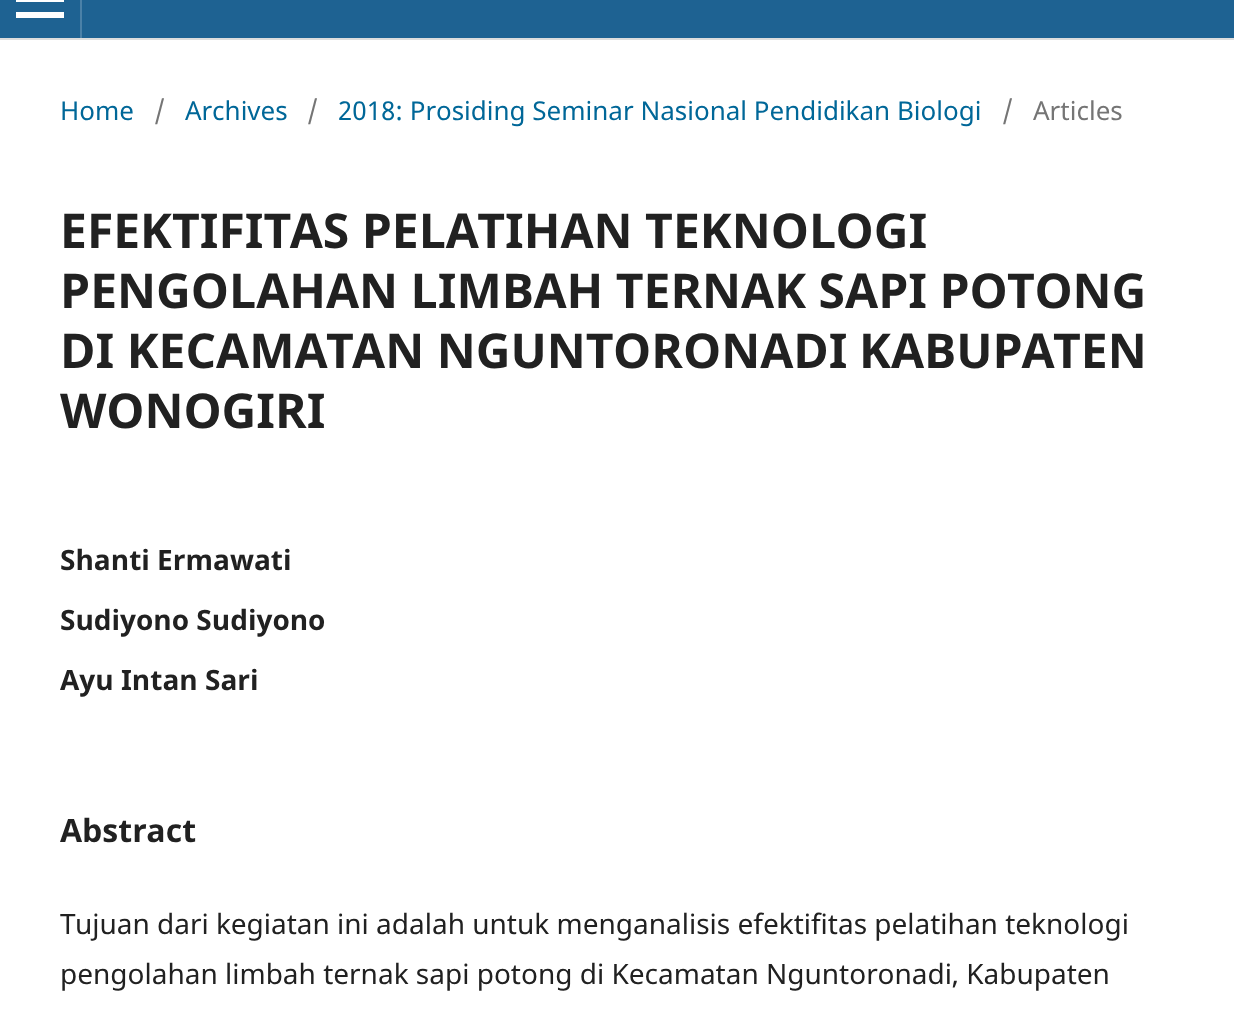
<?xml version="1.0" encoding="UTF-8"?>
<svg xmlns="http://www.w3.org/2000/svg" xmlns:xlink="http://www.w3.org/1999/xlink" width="1234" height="1013">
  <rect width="100%" height="100%" fill="#ffffff" />
  <rect width="1234" height="38" fill="#1e6292" />
  <rect y="38" width="1234" height="2" fill="#dddddd" />
  <rect x="80" width="2" height="38" fill="#4b81a8" />
  <rect x="16" y="12" width="48" height="6" fill="#ffffff" />
  <rect x="16" width="48" height="2" fill="#ffffff" />
  <text x="60" y="120" style="font-family: Noto Sans; font-size: 26px; fill: #006798">Home</text>
  <text x="154" y="120" style="font-family: Noto Sans; font-size: 26px; fill: #757575">/</text>
  <text x="185" y="120" style="font-family: Noto Sans; font-size: 26px; fill: #006798">Archives</text>
  <text x="307" y="120" style="font-family: Noto Sans; font-size: 26px; fill: #757575">/</text>
  <text x="338" y="120" style="font-family: Noto Sans; font-size: 26px; fill: #006798">2018: Prosiding Seminar Nasional Pendidikan Biologi</text>
  <text x="1002" y="120" style="font-family: Noto Sans; font-size: 26px; fill: #757575">/</text>
  <text x="1033" y="120" style="font-family: Noto Sans; font-size: 26px; fill: #757575">Articles</text>
  <text x="60" y="248" style="font-family: Noto Sans; font-size: 48px; font-weight: bold; fill: #212121">EFEKTIFITAS PELATIHAN TEKNOLOGI</text>
  <text x="60" y="308" style="font-family: Noto Sans; font-size: 48px; font-weight: bold; fill: #212121">PENGOLAHAN LIMBAH TERNAK SAPI POTONG</text>
  <text x="60" y="368" style="font-family: Noto Sans; font-size: 48px; font-weight: bold; fill: #212121">DI KECAMATAN NGUNTORONADI</text>
  <text x="859" y="368" style="font-family: Noto Sans; font-size: 48px; font-weight: bold; fill: #212121">KABUPATEN</text>
  <text x="60" y="428" style="font-family: Noto Sans; font-size: 48px; font-weight: bold; fill: #212121">WONOGIRI</text>
  <text x="60" y="570" style="font-family: Noto Sans; font-size: 28px; font-weight: bold; fill: #212121">Shanti Ermawati</text>
  <text x="60" y="630" style="font-family: Noto Sans; font-size: 28px; font-weight: bold; fill: #212121">Sudiyono Sudiyono</text>
  <text x="60" y="690" style="font-family: Noto Sans; font-size: 28px; font-weight: bold; fill: #212121">Ayu Intan Sari</text>
  <text x="60" y="842" style="font-family: Noto Sans; font-size: 32px; font-weight: bold; fill: #212121">Abstract</text>
  <text x="60" y="934" style="font-family: Noto Sans; font-size: 28px; fill: #212121">Tujuan dari kegiatan ini adalah untuk menganalisis efektifitas pelatihan teknologi</text>
  <text x="60" y="984" style="font-family: Noto Sans; font-size: 28px; fill: #212121">pengolahan limbah ternak sapi potong di Kecamatan Nguntoronadi, Kabupaten</text>
</svg>
